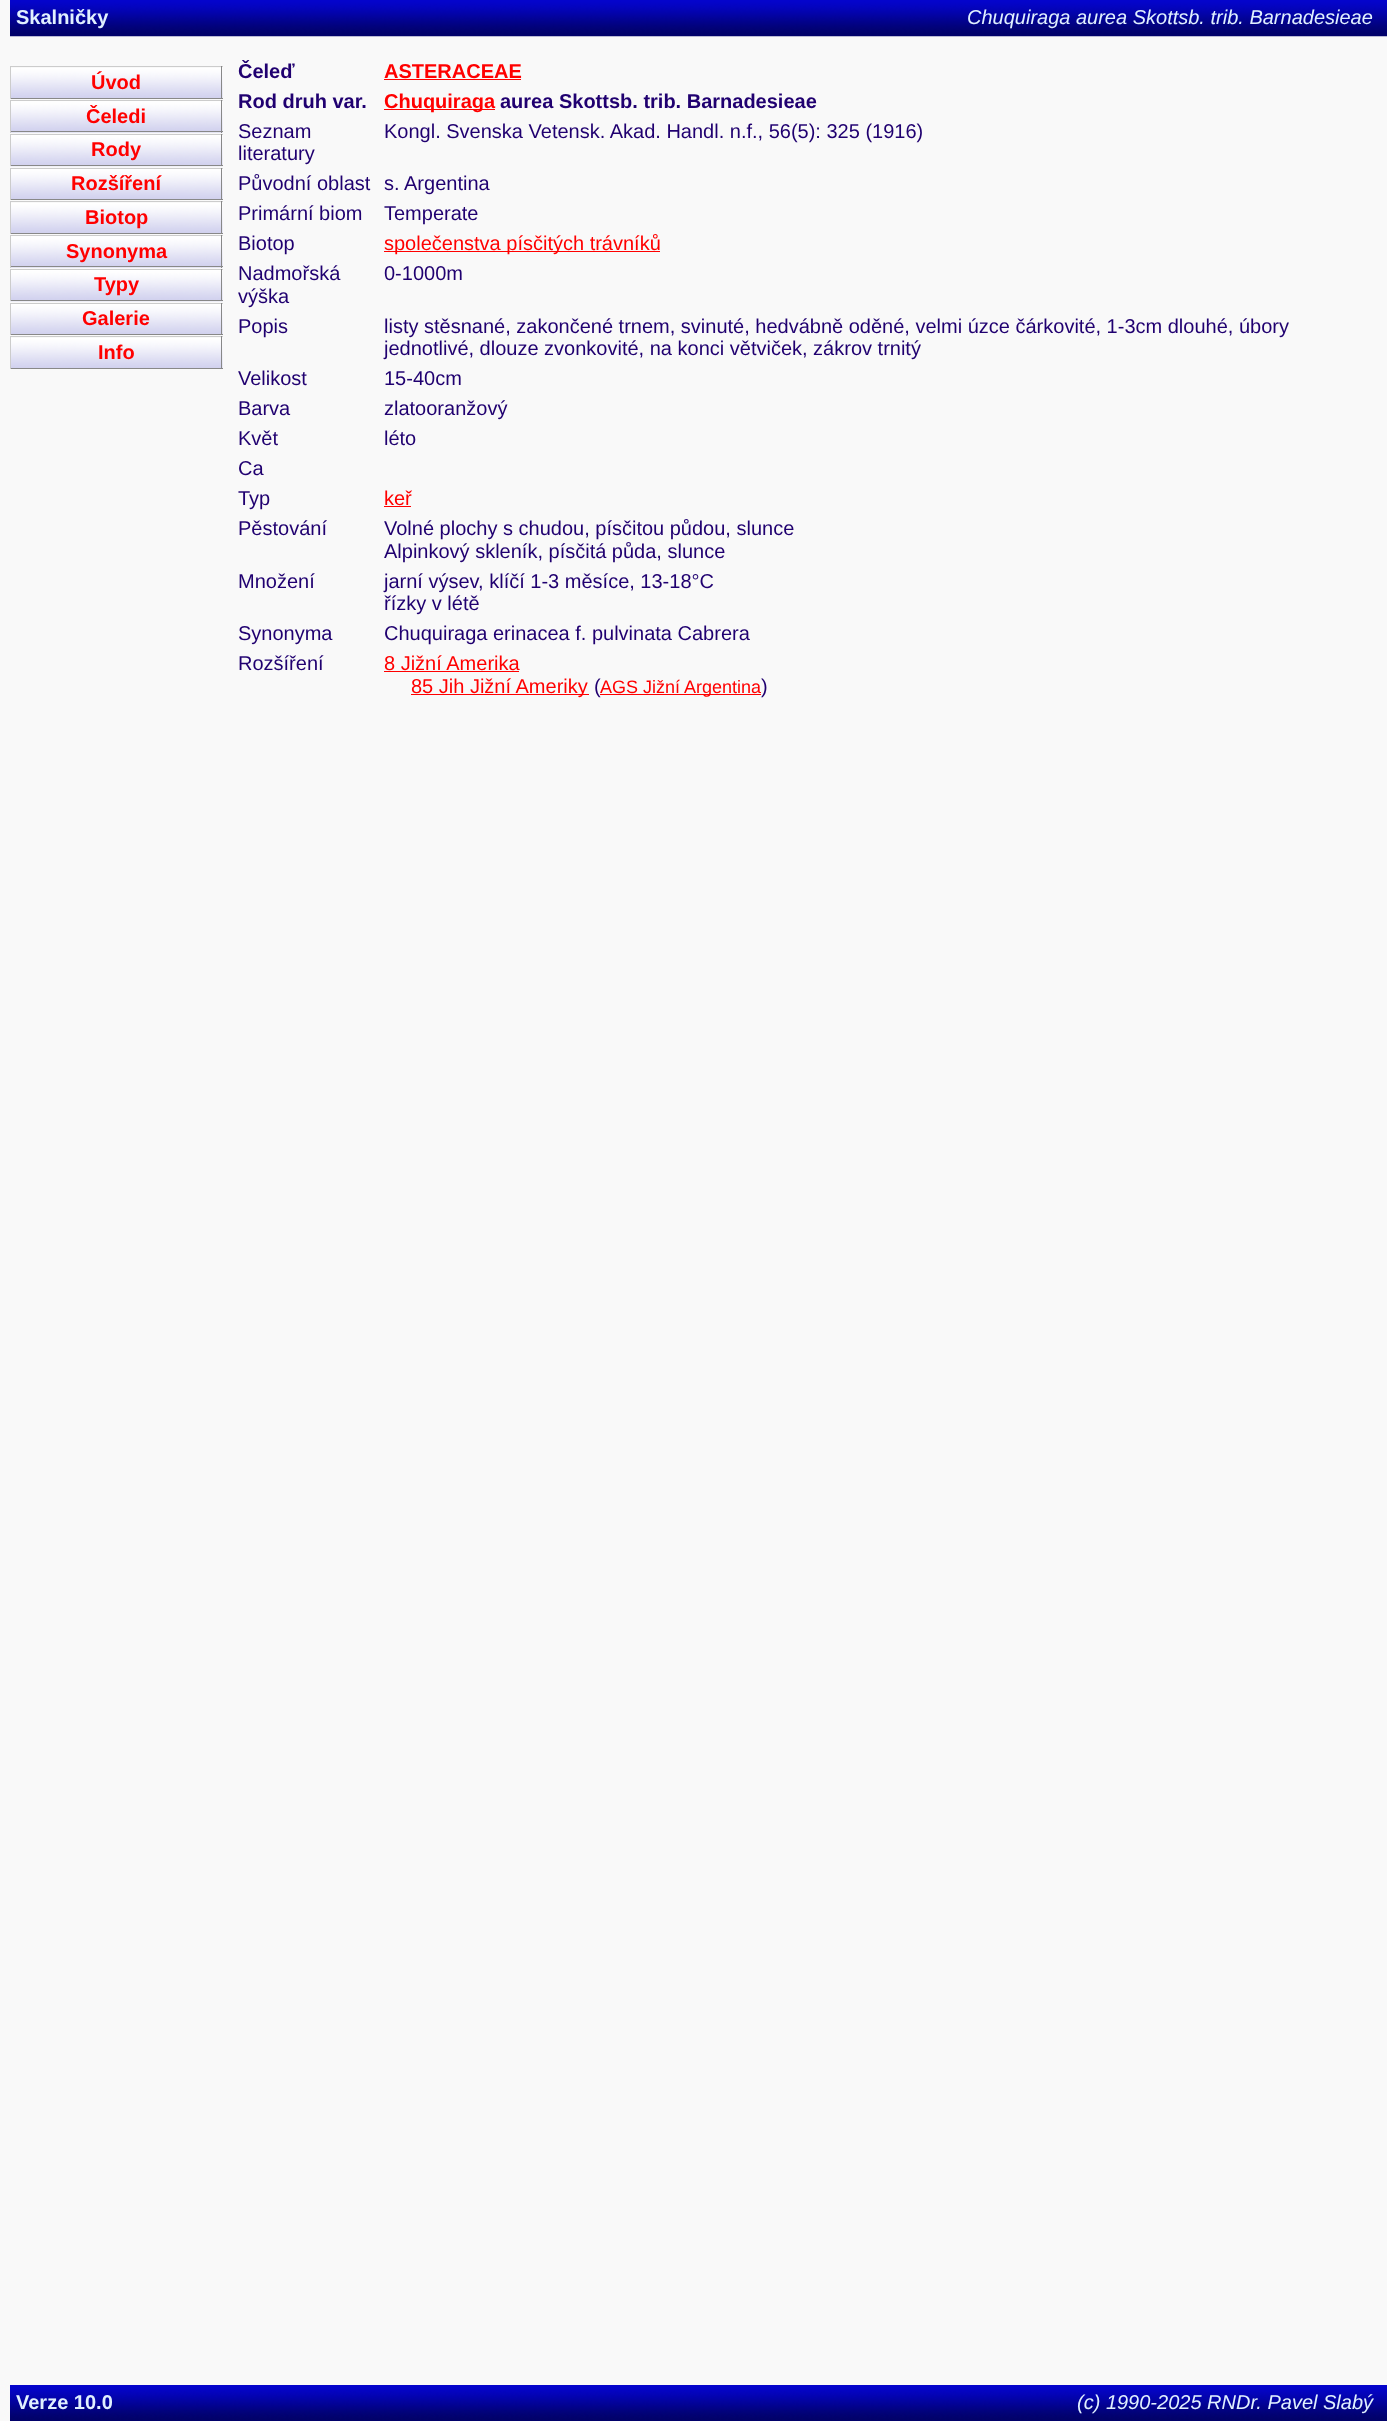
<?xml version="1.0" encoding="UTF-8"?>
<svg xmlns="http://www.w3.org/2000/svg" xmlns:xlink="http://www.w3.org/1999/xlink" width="1387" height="2421">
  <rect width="100%" height="100%" fill="#f9f9f9" />
  <image x="10" y="0" width="1377" height="37" xlink:href="image1.png" />
  <image x="11" y="68" width="212" height="30" xlink:href="image2.png" />
  <rect x="10" y="66" width="213" height="1" fill="#cccccc" />
  <rect x="221" y="66" width="1" height="33" fill="#888888" />
  <rect x="10" y="98" width="213" height="1" fill="#888888" />
  <rect x="10" y="66" width="1" height="33" fill="#cccccc" />
  <image x="11" y="101" width="212" height="32" xlink:href="image3.png" />
  <rect x="10" y="100" width="213" height="1" fill="#cccccc" />
  <rect x="221" y="100" width="1" height="33" fill="#888888" />
  <rect x="10" y="131" width="213" height="1" fill="#888888" />
  <rect x="10" y="100" width="1" height="33" fill="#cccccc" />
  <image x="10" y="135" width="213" height="32" xlink:href="image4.png" />
  <rect x="10" y="134" width="213" height="1" fill="#cccccc" />
  <rect x="221" y="134" width="1" height="32" fill="#888888" />
  <rect x="10" y="165" width="213" height="1" fill="#888888" />
  <rect x="10" y="134" width="1" height="32" fill="#cccccc" />
  <image x="11" y="169" width="212" height="30" xlink:href="image5.png" />
  <rect x="10" y="168" width="213" height="1" fill="#cccccc" />
  <rect x="221" y="168" width="1" height="32" fill="#888888" />
  <rect x="10" y="199" width="213" height="1" fill="#888888" />
  <rect x="10" y="168" width="1" height="32" fill="#cccccc" />
  <image x="11" y="203" width="212" height="30" xlink:href="image2.png" />
  <rect x="10" y="201" width="213" height="1" fill="#cccccc" />
  <rect x="221" y="201" width="1" height="33" fill="#888888" />
  <rect x="10" y="233" width="213" height="1" fill="#888888" />
  <rect x="10" y="201" width="1" height="33" fill="#cccccc" />
  <image x="11" y="236" width="212" height="32" xlink:href="image6.png" />
  <rect x="10" y="235" width="213" height="1" fill="#cccccc" />
  <rect x="221" y="235" width="1" height="33" fill="#888888" />
  <rect x="10" y="266" width="213" height="1" fill="#888888" />
  <rect x="10" y="235" width="1" height="33" fill="#cccccc" />
  <image x="10" y="270" width="213" height="32" xlink:href="image7.png" />
  <rect x="10" y="269" width="213" height="1" fill="#cccccc" />
  <rect x="221" y="269" width="1" height="32" fill="#888888" />
  <rect x="10" y="300" width="213" height="1" fill="#888888" />
  <rect x="10" y="269" width="1" height="32" fill="#cccccc" />
  <image x="11" y="304" width="212" height="30" xlink:href="image8.png" />
  <rect x="10" y="303" width="213" height="1" fill="#cccccc" />
  <rect x="221" y="303" width="1" height="32" fill="#888888" />
  <rect x="10" y="334" width="213" height="1" fill="#888888" />
  <rect x="10" y="303" width="1" height="32" fill="#cccccc" />
  <image x="11" y="338" width="212" height="30" xlink:href="image2.png" />
  <rect x="10" y="336" width="213" height="1" fill="#cccccc" />
  <rect x="221" y="336" width="1" height="33" fill="#888888" />
  <rect x="10" y="368" width="213" height="1" fill="#888888" />
  <rect x="10" y="336" width="1" height="33" fill="#cccccc" />
  <rect x="384" y="79" width="137" height="1" fill="#ff0000" />
  <rect x="384" y="109" width="111" height="1" fill="#ff0000" />
  <rect x="384" y="251" width="276" height="1" fill="#ff0000" />
  <rect x="384" y="506" width="27" height="1" fill="#ff0000" />
  <rect x="384" y="671" width="135" height="1" fill="#ff0000" />
  <rect x="411" y="694" width="178" height="1" fill="#ff0000" />
  <image x="10" y="2385" width="1377" height="36" xlink:href="image9.png" />
  <text x="16" y="24" style="font-family: Liberation Sans; font-size: 20px; font-weight: bold; fill: #e0f0ff">Skalničky</text>
  <text x="967" y="24" style="font-family: Liberation Sans; font-size: 20px; font-style: italic; fill: #e0f0ff">Chuquiraga aurea Skottsb. trib. Barnadesieae</text>
  <text x="91" y="89" style="font-family: Liberation Sans; font-size: 20px; font-weight: bold; fill: #ff0000">Úvod</text>
  <text x="86" y="123" style="font-family: Liberation Sans; font-size: 20px; font-weight: bold; fill: #ff0000">Čeledi</text>
  <text x="91" y="156" style="font-family: Liberation Sans; font-size: 20px; font-weight: bold; fill: #ff0000">Rody</text>
  <text x="71" y="190" style="font-family: Liberation Sans; font-size: 20px; font-weight: bold; fill: #ff0000">Rozšíření</text>
  <text x="85" y="224" style="font-family: Liberation Sans; font-size: 20px; font-weight: bold; fill: #ff0000">Biotop</text>
  <text x="66" y="258" style="font-family: Liberation Sans; font-size: 20px; font-weight: bold; fill: #ff0000">Synonyma</text>
  <text x="94" y="291" style="font-family: Liberation Sans; font-size: 20px; font-weight: bold; fill: #ff0000">Typy</text>
  <text x="82" y="325" style="font-family: Liberation Sans; font-size: 20px; font-weight: bold; fill: #ff0000">Galerie</text>
  <text x="98" y="359" style="font-family: Liberation Sans; font-size: 20px; font-weight: bold; fill: #ff0000">Info</text>
  <text x="238" y="78" style="font-family: Liberation Sans; font-size: 20px; font-weight: bold; fill: #200070">Čeleď</text>
  <text x="384" y="78" style="font-family: Liberation Sans; font-size: 20px; font-weight: bold; fill: #ff0000">ASTERACEAE</text>
  <text x="238" y="108" style="font-family: Liberation Sans; font-size: 20px; font-weight: bold; fill: #200070">Rod druh var.</text>
  <text x="384" y="108" style="font-family: Liberation Sans; font-size: 20px; font-weight: bold; fill: #ff0000">Chuquiraga</text>
  <text x="500" y="108" style="font-family: Liberation Sans; font-size: 20px; font-weight: bold; fill: #200070">aurea Skottsb. trib. Barnadesieae</text>
  <text x="238" y="138" style="font-family: Liberation Sans; font-size: 20px; fill: #200070">Seznam</text>
  <text x="238" y="160" style="font-family: Liberation Sans; font-size: 20px; fill: #200070">literatury</text>
  <text x="384" y="138" style="font-family: Liberation Sans; font-size: 20px; fill: #200070">Kongl. Svenska Vetensk. Akad. Handl. n.f., 56(5): 325 (1916)</text>
  <text x="238" y="190" style="font-family: Liberation Sans; font-size: 20px; fill: #200070">Původní oblast</text>
  <text x="384" y="190" style="font-family: Liberation Sans; font-size: 20px; fill: #200070">s. Argentina</text>
  <text x="238" y="220" style="font-family: Liberation Sans; font-size: 20px; fill: #200070">Primární biom</text>
  <text x="384" y="220" style="font-family: Liberation Sans; font-size: 20px; fill: #200070">Temperate</text>
  <text x="238" y="250" style="font-family: Liberation Sans; font-size: 20px; fill: #200070">Biotop</text>
  <text x="384" y="250" style="font-family: Liberation Sans; font-size: 20px; fill: #ff0000">společenstva písčitých trávníků</text>
  <text x="238" y="280" style="font-family: Liberation Sans; font-size: 20px; fill: #200070">Nadmořská</text>
  <text x="238" y="303" style="font-family: Liberation Sans; font-size: 20px; fill: #200070">výška</text>
  <text x="384" y="280" style="font-family: Liberation Sans; font-size: 20px; fill: #200070">0-1000m</text>
  <text x="238" y="333" style="font-family: Liberation Sans; font-size: 20px; fill: #200070">Popis</text>
  <text x="384" y="333" style="font-family: Liberation Sans; font-size: 20px; fill: #200070">listy stěsnané, zakončené trnem, svinuté, hedvábně oděné, velmi úzce čárkovité, 1-3cm dlouhé, úbory</text>
  <text x="384" y="355" style="font-family: Liberation Sans; font-size: 20px; fill: #200070">jednotlivé, dlouze zvonkovité, na konci větviček, zákrov trnitý</text>
  <text x="238" y="385" style="font-family: Liberation Sans; font-size: 20px; fill: #200070">Velikost</text>
  <text x="384" y="385" style="font-family: Liberation Sans; font-size: 20px; fill: #200070">15-40cm</text>
  <text x="238" y="415" style="font-family: Liberation Sans; font-size: 20px; fill: #200070">Barva</text>
  <text x="384" y="415" style="font-family: Liberation Sans; font-size: 20px; fill: #200070">zlatooranžový</text>
  <text x="238" y="445" style="font-family: Liberation Sans; font-size: 20px; fill: #200070">Květ</text>
  <text x="384" y="445" style="font-family: Liberation Sans; font-size: 20px; fill: #200070">léto</text>
  <text x="238" y="475" style="font-family: Liberation Sans; font-size: 20px; fill: #200070">Ca</text>
  <text x="238" y="505" style="font-family: Liberation Sans; font-size: 20px; fill: #200070">Typ</text>
  <text x="384" y="505" style="font-family: Liberation Sans; font-size: 20px; fill: #ff0000">keř</text>
  <text x="238" y="535" style="font-family: Liberation Sans; font-size: 20px; fill: #200070">Pěstování</text>
  <text x="384" y="535" style="font-family: Liberation Sans; font-size: 20px; fill: #200070">Volné plochy s chudou, písčitou půdou, slunce</text>
  <text x="384" y="558" style="font-family: Liberation Sans; font-size: 20px; fill: #200070">Alpinkový skleník, písčitá půda, slunce</text>
  <text x="238" y="588" style="font-family: Liberation Sans; font-size: 20px; fill: #200070">Množení</text>
  <text x="384" y="588" style="font-family: Liberation Sans; font-size: 20px; fill: #200070">jarní výsev, klíčí 1-3 měsíce, 13-18°C</text>
  <text x="384" y="610" style="font-family: Liberation Sans; font-size: 20px; fill: #200070">řízky v létě</text>
  <text x="238" y="640" style="font-family: Liberation Sans; font-size: 20px; fill: #200070">Synonyma</text>
  <text x="384" y="640" style="font-family: Liberation Sans; font-size: 20px; fill: #200070">Chuquiraga erinacea f. pulvinata Cabrera</text>
  <text x="238" y="670" style="font-family: Liberation Sans; font-size: 20px; fill: #200070">Rozšíření</text>
  <text x="384" y="670" style="font-family: Liberation Sans; font-size: 20px; fill: #ff0000">8 Jižní Amerika</text>
  <text x="411" y="693" style="font-family: Liberation Sans; font-size: 20px; fill: #ff0000">85 Jih Jižní Ameriky</text>
  <text x="594" y="693" style="font-family: Liberation Sans; font-size: 20px; fill: #200070">(</text>
  <rect x="600" y="694" width="161" height="1" fill="#ff0000" />
  <text x="600" y="693" style="font-family: Liberation Sans; font-size: 18px; fill: #ff0000">AGS Jižní Argentina</text>
  <text x="761" y="693" style="font-family: Liberation Sans; font-size: 20px; fill: #200070">)</text>
  <text x="16" y="2409" style="font-family: Liberation Sans; font-size: 20px; font-weight: bold; fill: #e0f0ff">Verze 10.0</text>
  <text x="1077" y="2409" style="font-family: Liberation Sans; font-size: 20px; font-style: italic; fill: #e0f0ff">(c) 1990-2025 RNDr. Pavel Slabý</text>
</svg>
